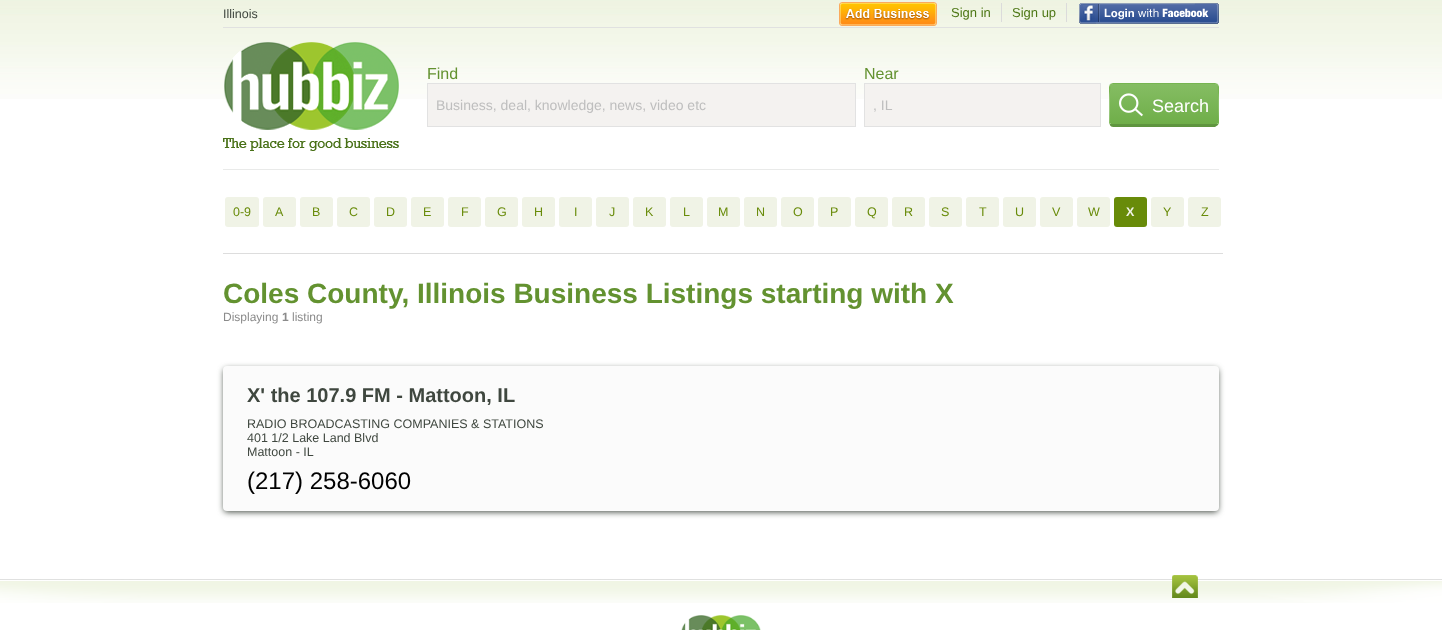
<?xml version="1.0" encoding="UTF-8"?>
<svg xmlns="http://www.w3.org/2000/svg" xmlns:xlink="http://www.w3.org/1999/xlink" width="1442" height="630">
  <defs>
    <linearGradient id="g1" gradientUnits="userSpaceOnUse" x1="1164" y1="44" x2="1164" y2="124"><stop offset="0" stop-color="#97db6e" /><stop offset="0.5" stop-color="#85bd63" /><stop offset="1" stop-color="#6fae49" /></linearGradient>
  </defs>
  <rect width="100%" height="100%" fill="#ffffff" />
  <image x="0" y="0" width="1442" height="99" xlink:href="image1.png" />
  <rect x="223" y="169" width="996" height="1" fill="#e9eae9" />
  <rect x="223" y="27" width="996" height="1" fill="#e0e1e0" />
  <image x="839" y="2" width="98" height="24" xlink:href="image2.png" />
  <rect x="1001" y="3" width="1" height="19" fill="#dbdbdb" />
  <rect x="1066" y="3" width="1" height="19" fill="#dbdbdb" />
  <image x="1079" y="3" width="140" height="21" xlink:href="image3.png" />
  <image x="223" y="42" width="176" height="109" xlink:href="image4.png" />
  <rect x="427.5" y="83.5" width="428" height="43" fill="#f4f2f0" stroke="#e2e2e2" />
  <rect x="864.5" y="83.5" width="236" height="43" fill="#f4f2f0" stroke="#e2e2e2" />
  <path d="M 1113 84 h 102 c 2 0 3 1 3 3 v 36 c 0 1 -1 1 -3 1 h -102 c -2 0 -3 0 -3 -1 v -36 c 0 -2 1 -3 3 -3 z" fill="url(#g1)" />
  <path d="M 1113 83 l -3 1 l 1 1 l 2 -1 h 102 l 2 1 l 1 -1 l -3 -1 z" fill="#77b551" />
  <path d="M 1219 123 v -36 c 0 -1 -1 -2 -1 -3 l -1 1 c 2 1 1 38 1 39 v 1 z" fill="#77b551" />
  <path d="M 1113 127 h 102 l 3 -2 v -1 h -3 h -103 h -2 v 1 c 0 1 2 2 3 2 z" fill="#5f953f" />
  <path d="M 1109 87 v 36 l 1 2 v -1 c 0 -1 -1 -38 1 -39 l -1 -1 z" fill="#77b551" />
  <image x="1119" y="93" width="24" height="24" xlink:href="image5.png" />
  <rect x="223" y="253" width="1000" height="1" fill="#dddddd" />
  <rect x="225" y="197" width="34" height="30" rx="3" fill="#f0f3e6" />
  <rect x="263" y="197" width="33" height="30" rx="3" fill="#f0f3e6" />
  <rect x="300" y="197" width="33" height="30" rx="3" fill="#f0f3e6" />
  <rect x="337" y="197" width="33" height="30" rx="3" fill="#f0f3e6" />
  <rect x="374" y="197" width="33" height="30" rx="3" fill="#f0f3e6" />
  <rect x="411" y="197" width="33" height="30" rx="3" fill="#f0f3e6" />
  <rect x="448" y="197" width="33" height="30" rx="3" fill="#f0f3e6" />
  <rect x="485" y="197" width="33" height="30" rx="3" fill="#f0f3e6" />
  <rect x="522" y="197" width="33" height="30" rx="3" fill="#f0f3e6" />
  <rect x="559" y="197" width="33" height="30" rx="3" fill="#f0f3e6" />
  <rect x="596" y="197" width="33" height="30" rx="3" fill="#f0f3e6" />
  <rect x="633" y="197" width="33" height="30" rx="3" fill="#f0f3e6" />
  <rect x="670" y="197" width="33" height="30" rx="3" fill="#f0f3e6" />
  <rect x="707" y="197" width="33" height="30" rx="3" fill="#f0f3e6" />
  <rect x="744" y="197" width="33" height="30" rx="3" fill="#f0f3e6" />
  <rect x="781" y="197" width="33" height="30" rx="3" fill="#f0f3e6" />
  <rect x="818" y="197" width="33" height="30" rx="3" fill="#f0f3e6" />
  <rect x="855" y="197" width="33" height="30" rx="3" fill="#f0f3e6" />
  <rect x="892" y="197" width="33" height="30" rx="3" fill="#f0f3e6" />
  <rect x="929" y="197" width="33" height="30" rx="3" fill="#f0f3e6" />
  <rect x="966" y="197" width="33" height="30" rx="3" fill="#f0f3e6" />
  <rect x="1003" y="197" width="33" height="30" rx="3" fill="#f0f3e6" />
  <rect x="1040" y="197" width="33" height="30" rx="3" fill="#f0f3e6" />
  <rect x="1077" y="197" width="33" height="30" rx="3" fill="#f0f3e6" />
  <rect x="1114" y="197" width="33" height="30" rx="3" fill="#688b09" />
  <rect x="1151" y="197" width="33" height="30" rx="3" fill="#f0f3e6" />
  <rect x="1188" y="197" width="33" height="30" rx="3" fill="#f0f3e6" />
  <rect x="224" y="369" width="994" height="143" rx="3" fill="#3f473f" filter="blur(3px)" />
  <rect x="223" y="366" width="996" height="145" rx="4" fill="#fbfbfb" />
  <image x="0" y="579" width="1442" height="24" xlink:href="image6.png" />
  <image x="1172" y="575" width="26" height="23" xlink:href="image7.png" />
  <image x="681" y="615" width="80" height="15" xlink:href="image8.png" />
  <text x="223" y="18" style="font-family: Liberation Sans; font-size: 12.5px; fill: #3f473f">Illinois</text>
  <text x="951" y="17" style="font-family: Liberation Sans; font-size: 13px; fill: #4d7715">Sign in</text>
  <text x="1012" y="17" style="font-family: Liberation Sans; font-size: 13px; fill: #4d7715">Sign up</text>
  <text x="427" y="79" style="font-family: Liberation Sans; font-size: 16px; fill: #639230">Find</text>
  <text x="436" y="110" style="font-family: Liberation Sans; font-size: 14px; fill: #bebebe">Business, deal, knowledge, news, video etc</text>
  <text x="864" y="79" style="font-family: Liberation Sans; font-size: 16px; fill: #639230">Near</text>
  <text x="873" y="110" style="font-family: Liberation Sans; font-size: 14px; fill: #bebebe">, IL</text>
  <text x="1152" y="112" style="font-family: Liberation Sans; font-size: 18px; fill: #ffffff">Search</text>
  <text x="233" y="216" style="font-family: Liberation Sans; font-size: 12.5px; fill: #688b09">0-9</text>
  <text x="275" y="216" style="font-family: Liberation Sans; font-size: 12.5px; fill: #688b09">A</text>
  <text x="312" y="216" style="font-family: Liberation Sans; font-size: 12.5px; fill: #688b09">B</text>
  <text x="349" y="216" style="font-family: Liberation Sans; font-size: 12.5px; fill: #688b09">C</text>
  <text x="386" y="216" style="font-family: Liberation Sans; font-size: 12.5px; fill: #688b09">D</text>
  <text x="423" y="216" style="font-family: Liberation Sans; font-size: 12.5px; fill: #688b09">E</text>
  <text x="461" y="216" style="font-family: Liberation Sans; font-size: 12.5px; fill: #688b09">F</text>
  <text x="497" y="216" style="font-family: Liberation Sans; font-size: 12.5px; fill: #688b09">G</text>
  <text x="534" y="216" style="font-family: Liberation Sans; font-size: 12.5px; fill: #688b09">H</text>
  <text x="574" y="216" style="font-family: Liberation Sans; font-size: 12.5px; fill: #688b09">I</text>
  <text x="609" y="216" style="font-family: Liberation Sans; font-size: 12.5px; fill: #688b09">J</text>
  <text x="645" y="216" style="font-family: Liberation Sans; font-size: 12.5px; fill: #688b09">K</text>
  <text x="683" y="216" style="font-family: Liberation Sans; font-size: 12.5px; fill: #688b09">L</text>
  <text x="718" y="216" style="font-family: Liberation Sans; font-size: 12.5px; fill: #688b09">M</text>
  <text x="756" y="216" style="font-family: Liberation Sans; font-size: 12.5px; fill: #688b09">N</text>
  <text x="793" y="216" style="font-family: Liberation Sans; font-size: 12.5px; fill: #688b09">O</text>
  <text x="830" y="216" style="font-family: Liberation Sans; font-size: 12.5px; fill: #688b09">P</text>
  <text x="867" y="216" style="font-family: Liberation Sans; font-size: 12.5px; fill: #688b09">Q</text>
  <text x="904" y="216" style="font-family: Liberation Sans; font-size: 12.5px; fill: #688b09">R</text>
  <text x="941" y="216" style="font-family: Liberation Sans; font-size: 12.5px; fill: #688b09">S</text>
  <text x="979" y="216" style="font-family: Liberation Sans; font-size: 12.5px; fill: #688b09">T</text>
  <text x="1015" y="216" style="font-family: Liberation Sans; font-size: 12.5px; fill: #688b09">U</text>
  <text x="1052" y="216" style="font-family: Liberation Sans; font-size: 12.5px; fill: #688b09">V</text>
  <text x="1088" y="216" style="font-family: Liberation Sans; font-size: 12.5px; fill: #688b09">W</text>
  <text x="1126" y="216" style="font-family: Liberation Sans; font-size: 12.5px; font-weight: bold; fill: #f0f3e6">X</text>
  <text x="1163" y="216" style="font-family: Liberation Sans; font-size: 12.5px; fill: #688b09">Y</text>
  <text x="1201" y="216" style="font-family: Liberation Sans; font-size: 12.5px; fill: #688b09">Z</text>
  <text x="223" y="303" style="font-family: Liberation Sans; font-size: 28px; font-weight: bold; fill: #639230">Coles County, Illinois Business Listings starting with X</text>
  <text x="223" y="321" style="font-family: Liberation Sans; font-size: 12px; fill: #8b8b8b">Displaying</text>
  <text x="282" y="321" style="font-family: Liberation Sans; font-size: 12px; font-weight: bold; fill: #8b8b8b">1</text>
  <text x="292" y="321" style="font-family: Liberation Sans; font-size: 12px; fill: #8b8b8b">listing</text>
  <text x="247" y="402" style="font-family: Liberation Sans; font-size: 20px; font-weight: bold; fill: #3f473f">X' the 107.9 FM - Mattoon, IL</text>
  <text x="247" y="428" style="font-family: Liberation Sans; font-size: 12.5px; fill: #3f473f">RADIO BROADCASTING COMPANIES &amp; STATIONS</text>
  <text x="247" y="442" style="font-family: Liberation Sans; font-size: 12.5px; fill: #3f473f">401 1/2 Lake Land Blvd</text>
  <text x="247" y="456" style="font-family: Liberation Sans; font-size: 12.5px; fill: #3f473f">Mattoon - IL</text>
  <text x="247" y="489" style="font-family: Liberation Sans; font-size: 24px; fill: #000000">(217) 258-6060</text>
</svg>
